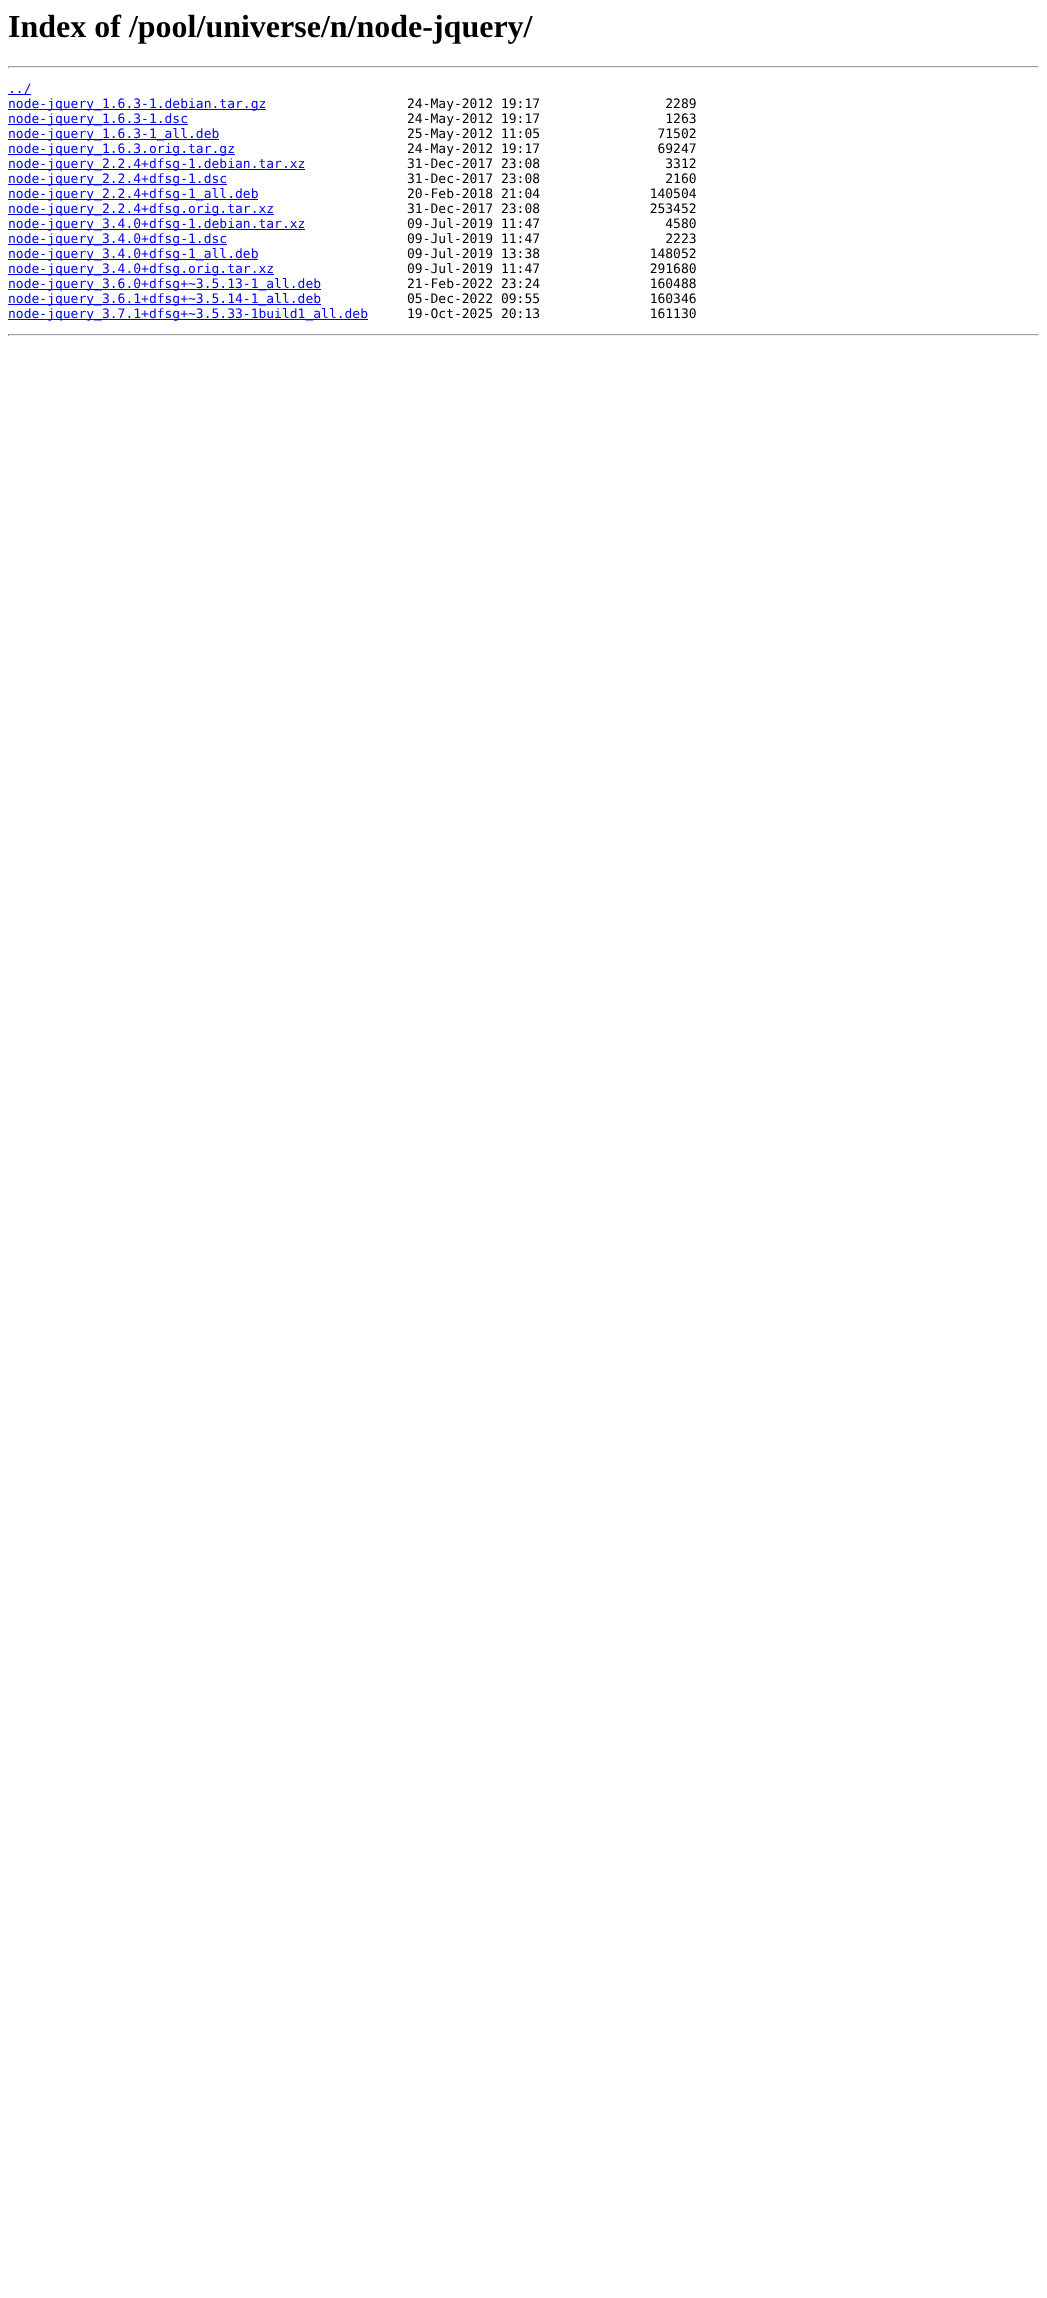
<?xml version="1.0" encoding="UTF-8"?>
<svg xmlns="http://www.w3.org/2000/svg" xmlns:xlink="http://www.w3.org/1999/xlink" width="1047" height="2298">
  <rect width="100%" height="100%" fill="#ffffff" />
  <rect x="8" y="66" width="1031" height="1" fill="#9f9f9f" />
  <rect x="1038" y="66" width="1" height="2" fill="#eeeeee" />
  <rect x="8" y="67" width="1031" height="1" fill="#eeeeee" />
  <rect x="8" y="66" width="1" height="2" fill="#9f9f9f" />
  <rect x="8" y="94" width="23" height="1" fill="#0000ee" />
  <rect x="8" y="109" width="258" height="1" fill="#0000ee" />
  <rect x="8" y="124" width="180" height="1" fill="#0000ee" />
  <rect x="8" y="139" width="211" height="1" fill="#0000ee" />
  <rect x="8" y="154" width="227" height="1" fill="#0000ee" />
  <rect x="8" y="169" width="297" height="1" fill="#0000ee" />
  <rect x="8" y="184" width="219" height="1" fill="#0000ee" />
  <rect x="8" y="199" width="250" height="1" fill="#0000ee" />
  <rect x="8" y="214" width="266" height="1" fill="#0000ee" />
  <rect x="8" y="229" width="297" height="1" fill="#0000ee" />
  <rect x="8" y="244" width="219" height="1" fill="#0000ee" />
  <rect x="8" y="259" width="250" height="1" fill="#0000ee" />
  <rect x="8" y="274" width="266" height="1" fill="#0000ee" />
  <rect x="8" y="289" width="313" height="1" fill="#0000ee" />
  <rect x="8" y="304" width="313" height="1" fill="#0000ee" />
  <rect x="8" y="319" width="360" height="1" fill="#0000ee" />
  <rect x="8" y="334" width="1031" height="1" fill="#9f9f9f" />
  <rect x="1038" y="334" width="1" height="2" fill="#eeeeee" />
  <rect x="8" y="335" width="1031" height="1" fill="#eeeeee" />
  <rect x="8" y="334" width="1" height="2" fill="#9f9f9f" />
  <text x="8" y="37" style="font-family: Liberation Serif; font-size: 32px; font-weight: bold; fill: #000000">Index of /pool/universe/n/node-jquery/</text>
  <text x="8" y="93" style="font-family: DejaVu Sans Mono; font-size: 13px; fill: #0000ee">../</text>
  <text x="8" y="108" style="font-family: DejaVu Sans Mono; font-size: 13px; fill: #0000ee">node-jquery_1.6.3-1.debian.tar.gz</text>
  <text x="407" y="108" style="font-family: DejaVu Sans Mono; font-size: 13px; fill: #000000" xml:space="preserve">24-May-2012 19:17                2289</text>
  <text x="8" y="123" style="font-family: DejaVu Sans Mono; font-size: 13px; fill: #0000ee">node-jquery_1.6.3-1.dsc</text>
  <text x="407" y="123" style="font-family: DejaVu Sans Mono; font-size: 13px; fill: #000000" xml:space="preserve">24-May-2012 19:17                1263</text>
  <text x="8" y="138" style="font-family: DejaVu Sans Mono; font-size: 13px; fill: #0000ee">node-jquery_1.6.3-1_all.deb</text>
  <text x="407" y="138" style="font-family: DejaVu Sans Mono; font-size: 13px; fill: #000000" xml:space="preserve">25-May-2012 11:05               71502</text>
  <text x="8" y="153" style="font-family: DejaVu Sans Mono; font-size: 13px; fill: #0000ee">node-jquery_1.6.3.orig.tar.gz</text>
  <text x="407" y="153" style="font-family: DejaVu Sans Mono; font-size: 13px; fill: #000000" xml:space="preserve">24-May-2012 19:17               69247</text>
  <text x="8" y="168" style="font-family: DejaVu Sans Mono; font-size: 13px; fill: #0000ee">node-jquery_2.2.4+dfsg-1.debian.tar.xz</text>
  <text x="407" y="168" style="font-family: DejaVu Sans Mono; font-size: 13px; fill: #000000" xml:space="preserve">31-Dec-2017 23:08                3312</text>
  <text x="8" y="183" style="font-family: DejaVu Sans Mono; font-size: 13px; fill: #0000ee">node-jquery_2.2.4+dfsg-1.dsc</text>
  <text x="407" y="183" style="font-family: DejaVu Sans Mono; font-size: 13px; fill: #000000" xml:space="preserve">31-Dec-2017 23:08                2160</text>
  <text x="8" y="198" style="font-family: DejaVu Sans Mono; font-size: 13px; fill: #0000ee">node-jquery_2.2.4+dfsg-1_all.deb</text>
  <text x="407" y="198" style="font-family: DejaVu Sans Mono; font-size: 13px; fill: #000000" xml:space="preserve">20-Feb-2018 21:04              140504</text>
  <text x="8" y="213" style="font-family: DejaVu Sans Mono; font-size: 13px; fill: #0000ee">node-jquery_2.2.4+dfsg.orig.tar.xz</text>
  <text x="407" y="213" style="font-family: DejaVu Sans Mono; font-size: 13px; fill: #000000" xml:space="preserve">31-Dec-2017 23:08              253452</text>
  <text x="8" y="228" style="font-family: DejaVu Sans Mono; font-size: 13px; fill: #0000ee">node-jquery_3.4.0+dfsg-1.debian.tar.xz</text>
  <text x="407" y="228" style="font-family: DejaVu Sans Mono; font-size: 13px; fill: #000000" xml:space="preserve">09-Jul-2019 11:47                4580</text>
  <text x="8" y="243" style="font-family: DejaVu Sans Mono; font-size: 13px; fill: #0000ee">node-jquery_3.4.0+dfsg-1.dsc</text>
  <text x="407" y="243" style="font-family: DejaVu Sans Mono; font-size: 13px; fill: #000000" xml:space="preserve">09-Jul-2019 11:47                2223</text>
  <text x="8" y="258" style="font-family: DejaVu Sans Mono; font-size: 13px; fill: #0000ee">node-jquery_3.4.0+dfsg-1_all.deb</text>
  <text x="407" y="258" style="font-family: DejaVu Sans Mono; font-size: 13px; fill: #000000" xml:space="preserve">09-Jul-2019 13:38              148052</text>
  <text x="8" y="273" style="font-family: DejaVu Sans Mono; font-size: 13px; fill: #0000ee">node-jquery_3.4.0+dfsg.orig.tar.xz</text>
  <text x="407" y="273" style="font-family: DejaVu Sans Mono; font-size: 13px; fill: #000000" xml:space="preserve">09-Jul-2019 11:47              291680</text>
  <text x="8" y="288" style="font-family: DejaVu Sans Mono; font-size: 13px; fill: #0000ee">node-jquery_3.6.0+dfsg+~3.5.13-1_all.deb</text>
  <text x="407" y="288" style="font-family: DejaVu Sans Mono; font-size: 13px; fill: #000000" xml:space="preserve">21-Feb-2022 23:24              160488</text>
  <text x="8" y="303" style="font-family: DejaVu Sans Mono; font-size: 13px; fill: #0000ee">node-jquery_3.6.1+dfsg+~3.5.14-1_all.deb</text>
  <text x="407" y="303" style="font-family: DejaVu Sans Mono; font-size: 13px; fill: #000000" xml:space="preserve">05-Dec-2022 09:55              160346</text>
  <text x="8" y="318" style="font-family: DejaVu Sans Mono; font-size: 13px; fill: #0000ee">node-jquery_3.7.1+dfsg+~3.5.33-1build1_all.deb</text>
  <text x="407" y="318" style="font-family: DejaVu Sans Mono; font-size: 13px; fill: #000000" xml:space="preserve">19-Oct-2025 20:13              161130</text>
</svg>
